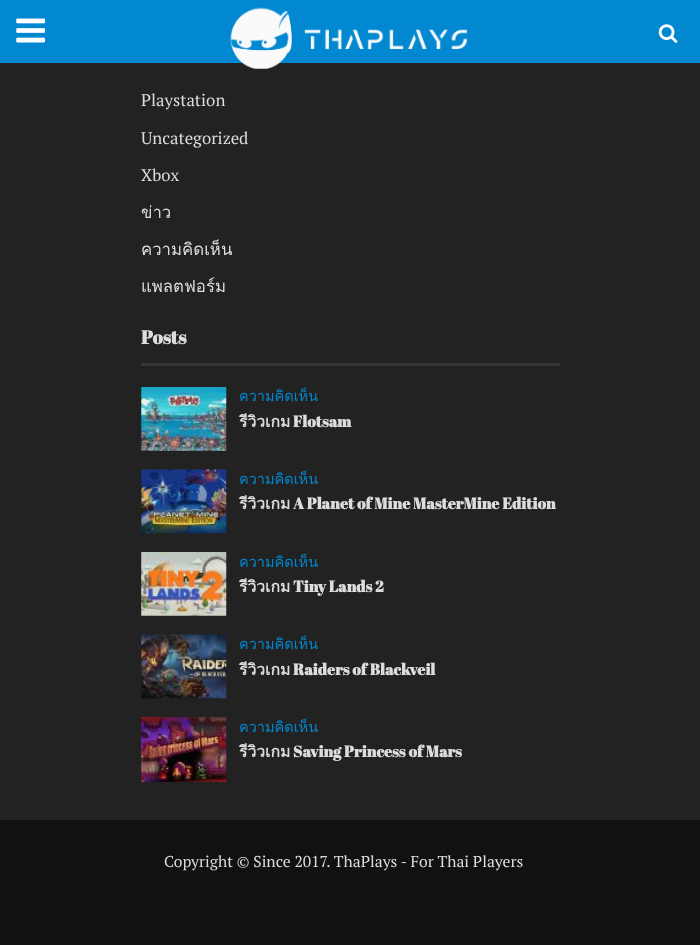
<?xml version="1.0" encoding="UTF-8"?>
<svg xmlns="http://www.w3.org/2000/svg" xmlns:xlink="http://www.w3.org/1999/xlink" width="700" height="945">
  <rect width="100%" height="100%" fill="#222222" />
  <rect width="700" height="63" fill="#0288d1" />
  <image x="16" y="18" width="30" height="25" xlink:href="image1.png" />
  <image x="230" y="7" width="238" height="62" xlink:href="image2.png" />
  <image x="658" y="24" width="20" height="19" xlink:href="image3.png" />
  <rect x="141" y="363" width="419" height="3" fill="#353535" />
  <image x="141" y="387" width="86" height="64" xlink:href="image4.png" />
  <image x="141" y="469" width="86" height="65" xlink:href="image5.png" />
  <image x="141" y="552" width="86" height="64" xlink:href="image6.png" />
  <image x="141" y="634" width="86" height="65" xlink:href="image7.png" />
  <image x="141" y="717" width="86" height="65" xlink:href="image8.png" />
  <rect y="820" width="700" height="125" fill="#111111" />
  <text x="141" y="106" style="font-family: PT Serif; font-size: 16.75px; fill: #dddddd">Playstation</text>
  <text x="141" y="144" style="font-family: PT Serif; font-size: 16.75px; fill: #dddddd">Uncategorized</text>
  <text x="141" y="181" style="font-family: PT Serif; font-size: 16.75px; fill: #dddddd">Xbox</text>
  <text x="141" y="218" style="font-family: Loma; font-size: 16.75px; fill: #dddddd">ข่าว</text>
  <text x="141" y="255" style="font-family: Loma; font-size: 16.75px; fill: #dddddd">ความคิดเห็น</text>
  <text x="141" y="292" style="font-family: Loma; font-size: 16.75px; fill: #dddddd">แพลตฟอร์ม</text>
  <text x="141" y="344" style="font-family: Abril Fatface; font-size: 19px; font-weight: bold; fill: #dddddd">Posts</text>
  <text x="239" y="401" style="font-family: Loma; font-size: 14.5px; fill: #0288d1">ความคิดเห็น</text>
  <text x="239" y="427" style="font-family: Loma; font-size: 15.7px; font-weight: bold; fill: #dddddd">รีวิวเกม</text>
  <text x="293" y="427" style="font-family: Abril Fatface; font-size: 15.7px; font-weight: bold; fill: #dddddd">Flotsam</text>
  <text x="239" y="484" style="font-family: Loma; font-size: 14.5px; fill: #0288d1">ความคิดเห็น</text>
  <text x="239" y="509" style="font-family: Loma; font-size: 15.7px; font-weight: bold; fill: #dddddd">รีวิวเกม</text>
  <text x="293" y="509" style="font-family: Abril Fatface; font-size: 15.7px; font-weight: bold; fill: #dddddd">A Planet of Mine MasterMine Edition</text>
  <text x="239" y="567" style="font-family: Loma; font-size: 14.5px; fill: #0288d1">ความคิดเห็น</text>
  <text x="239" y="592" style="font-family: Loma; font-size: 15.7px; font-weight: bold; fill: #dddddd">รีวิวเกม</text>
  <text x="293" y="592" style="font-family: Abril Fatface; font-size: 15.7px; font-weight: bold; fill: #dddddd">Tiny Lands 2</text>
  <text x="239" y="649" style="font-family: Loma; font-size: 14.5px; fill: #0288d1">ความคิดเห็น</text>
  <text x="239" y="675" style="font-family: Loma; font-size: 15.7px; font-weight: bold; fill: #dddddd">รีวิวเกม</text>
  <text x="293" y="675" style="font-family: Abril Fatface; font-size: 15.7px; font-weight: bold; fill: #dddddd">Raiders of Blackveil</text>
  <text x="239" y="732" style="font-family: Loma; font-size: 14.5px; fill: #0288d1">ความคิดเห็น</text>
  <text x="239" y="757" style="font-family: Loma; font-size: 15.7px; font-weight: bold; fill: #dddddd">รีวิวเกม</text>
  <text x="293" y="757" style="font-family: Abril Fatface; font-size: 15.7px; font-weight: bold; fill: #dddddd">Saving Princess of Mars</text>
  <text x="164" y="867" style="font-family: PT Serif; font-size: 15.7px; fill: #dddddd">Copyright © Since 2017. ThaPlays - For Thai Players</text>
</svg>
